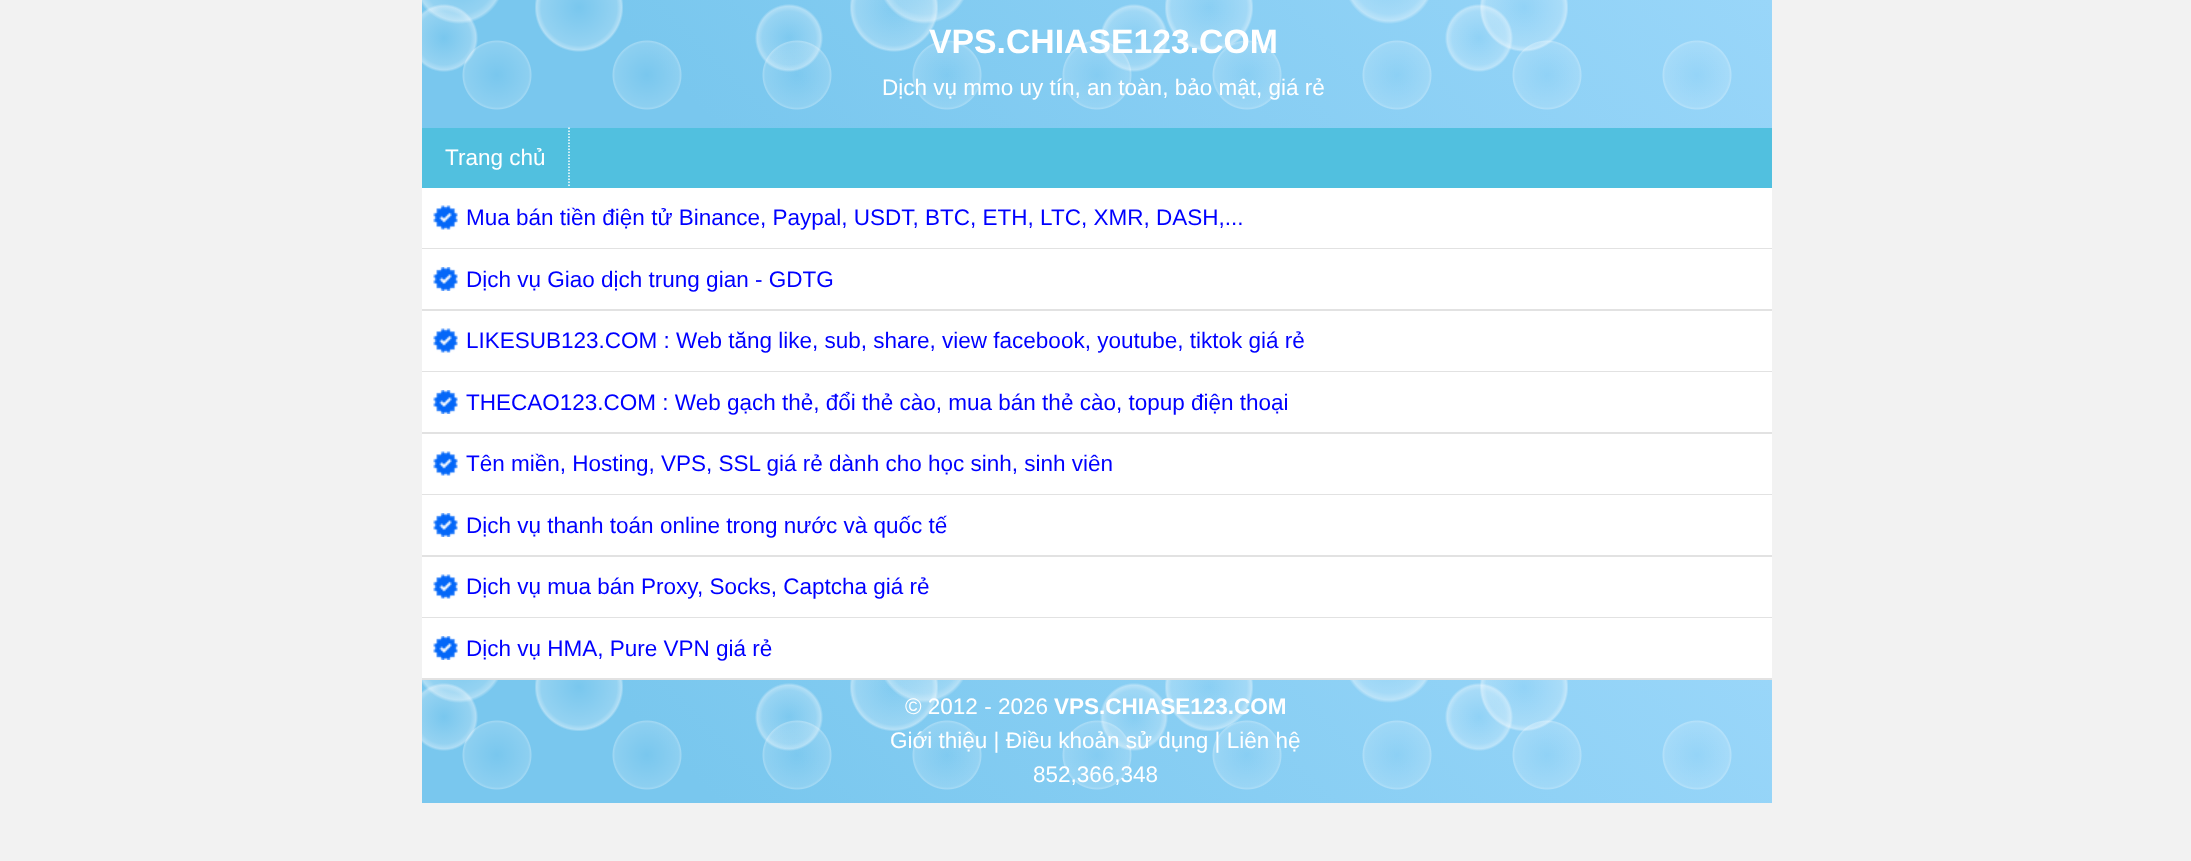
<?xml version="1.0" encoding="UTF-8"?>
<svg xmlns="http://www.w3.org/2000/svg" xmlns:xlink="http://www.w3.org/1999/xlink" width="2191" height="861">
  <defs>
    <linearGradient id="g1" gradientUnits="userSpaceOnUse" x1="727" y1="433" x2="1466" y2="-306"><stop offset="0.2" stop-color="#79c7ee" /><stop offset="1" stop-color="#99d6f9" /></linearGradient>
    <radialGradient id="g2" gradientUnits="userSpaceOnUse" cx="444" cy="38" r="244"><stop offset="0" stop-color="#79c7ee" /><stop offset="0.11" stop-color="#94d2f1" /><stop offset="0.13" stop-color="#afddf5" /><stop offset="0.14" stop-color="#79c7ee" /></radialGradient>
    <radialGradient id="g3" gradientUnits="userSpaceOnUse" cx="789" cy="38" r="244"><stop offset="0" stop-color="#ffffff" stop-opacity="0" /><stop offset="0.11" stop-color="#ffffff" stop-opacity="0.2" /><stop offset="0.13" stop-color="#ffffff" stop-opacity="0.4" /><stop offset="0.14" stop-color="#ffffff" stop-opacity="0" /></radialGradient>
    <radialGradient id="g4" gradientUnits="userSpaceOnUse" cx="1134" cy="38" r="244"><stop offset="0" stop-color="#ffffff" stop-opacity="0" /><stop offset="0.11" stop-color="#ffffff" stop-opacity="0.2" /><stop offset="0.13" stop-color="#ffffff" stop-opacity="0.4" /><stop offset="0.14" stop-color="#ffffff" stop-opacity="0" /></radialGradient>
    <radialGradient id="g5" gradientUnits="userSpaceOnUse" cx="1479" cy="38" r="244"><stop offset="0" stop-color="#ffffff" stop-opacity="0" /><stop offset="0.11" stop-color="#ffffff" stop-opacity="0.2" /><stop offset="0.13" stop-color="#ffffff" stop-opacity="0.4" /><stop offset="0.14" stop-color="#ffffff" stop-opacity="0" /></radialGradient>
    <radialGradient id="g6" gradientUnits="userSpaceOnUse" cx="459" cy="-22" r="329"><stop offset="0" stop-color="#ffffff" stop-opacity="0" /><stop offset="0.11" stop-color="#ffffff" stop-opacity="0.2" /><stop offset="0.13" stop-color="#ffffff" stop-opacity="0.4" /><stop offset="0.14" stop-color="#ffffff" stop-opacity="0" /></radialGradient>
    <radialGradient id="g7" gradientUnits="userSpaceOnUse" cx="924" cy="-22" r="329"><stop offset="0" stop-color="#ffffff" stop-opacity="0" /><stop offset="0.11" stop-color="#ffffff" stop-opacity="0.2" /><stop offset="0.13" stop-color="#ffffff" stop-opacity="0.4" /><stop offset="0.14" stop-color="#ffffff" stop-opacity="0" /></radialGradient>
    <radialGradient id="g8" gradientUnits="userSpaceOnUse" cx="1389" cy="-22" r="329"><stop offset="0" stop-color="#ffffff" stop-opacity="0" /><stop offset="0.11" stop-color="#ffffff" stop-opacity="0.2" /><stop offset="0.13" stop-color="#ffffff" stop-opacity="0.4" /><stop offset="0.14" stop-color="#ffffff" stop-opacity="0" /></radialGradient>
    <radialGradient id="g9" gradientUnits="userSpaceOnUse" cx="579" cy="7.5" r="223"><stop offset="0" stop-color="#ffffff" stop-opacity="0" /><stop offset="0.17" stop-color="#ffffff" stop-opacity="0.2" /><stop offset="0.19" stop-color="#ffffff" stop-opacity="0.43" /><stop offset="0.2" stop-color="#ffffff" stop-opacity="0" /></radialGradient>
    <radialGradient id="g10" gradientUnits="userSpaceOnUse" cx="894" cy="7.5" r="223"><stop offset="0" stop-color="#ffffff" stop-opacity="0" /><stop offset="0.17" stop-color="#ffffff" stop-opacity="0.2" /><stop offset="0.19" stop-color="#ffffff" stop-opacity="0.43" /><stop offset="0.2" stop-color="#ffffff" stop-opacity="0" /></radialGradient>
    <radialGradient id="g11" gradientUnits="userSpaceOnUse" cx="1209" cy="7.5" r="223"><stop offset="0" stop-color="#ffffff" stop-opacity="0" /><stop offset="0.17" stop-color="#ffffff" stop-opacity="0.2" /><stop offset="0.19" stop-color="#ffffff" stop-opacity="0.43" /><stop offset="0.2" stop-color="#ffffff" stop-opacity="0" /></radialGradient>
    <radialGradient id="g12" gradientUnits="userSpaceOnUse" cx="1524" cy="7.5" r="223"><stop offset="0" stop-color="#ffffff" stop-opacity="0" /><stop offset="0.17" stop-color="#ffffff" stop-opacity="0.2" /><stop offset="0.19" stop-color="#ffffff" stop-opacity="0.43" /><stop offset="0.2" stop-color="#ffffff" stop-opacity="0" /></radialGradient>
    <radialGradient id="g13" gradientUnits="userSpaceOnUse" cx="497" cy="75" r="106"><stop offset="0" stop-color="#ffffff" stop-opacity="0" /><stop offset="0.3" stop-color="#ffffff" stop-opacity="0.15" /><stop offset="0.32" stop-color="#ffffff" stop-opacity="0.3" /><stop offset="0.33" stop-color="#ffffff" stop-opacity="0" /></radialGradient>
    <radialGradient id="g14" gradientUnits="userSpaceOnUse" cx="647" cy="75" r="106"><stop offset="0" stop-color="#ffffff" stop-opacity="0" /><stop offset="0.3" stop-color="#ffffff" stop-opacity="0.15" /><stop offset="0.32" stop-color="#ffffff" stop-opacity="0.3" /><stop offset="0.33" stop-color="#ffffff" stop-opacity="0" /></radialGradient>
    <radialGradient id="g15" gradientUnits="userSpaceOnUse" cx="797" cy="75" r="106"><stop offset="0" stop-color="#ffffff" stop-opacity="0" /><stop offset="0.3" stop-color="#ffffff" stop-opacity="0.15" /><stop offset="0.32" stop-color="#ffffff" stop-opacity="0.3" /><stop offset="0.33" stop-color="#ffffff" stop-opacity="0" /></radialGradient>
    <radialGradient id="g16" gradientUnits="userSpaceOnUse" cx="947" cy="75" r="106"><stop offset="0" stop-color="#ffffff" stop-opacity="0" /><stop offset="0.3" stop-color="#ffffff" stop-opacity="0.15" /><stop offset="0.32" stop-color="#ffffff" stop-opacity="0.3" /><stop offset="0.33" stop-color="#ffffff" stop-opacity="0" /></radialGradient>
    <radialGradient id="g17" gradientUnits="userSpaceOnUse" cx="1097" cy="75" r="106"><stop offset="0" stop-color="#ffffff" stop-opacity="0" /><stop offset="0.3" stop-color="#ffffff" stop-opacity="0.15" /><stop offset="0.32" stop-color="#ffffff" stop-opacity="0.3" /><stop offset="0.33" stop-color="#ffffff" stop-opacity="0" /></radialGradient>
    <radialGradient id="g18" gradientUnits="userSpaceOnUse" cx="1247" cy="75" r="106"><stop offset="0" stop-color="#ffffff" stop-opacity="0" /><stop offset="0.3" stop-color="#ffffff" stop-opacity="0.15" /><stop offset="0.32" stop-color="#ffffff" stop-opacity="0.3" /><stop offset="0.33" stop-color="#ffffff" stop-opacity="0" /></radialGradient>
    <radialGradient id="g19" gradientUnits="userSpaceOnUse" cx="1397" cy="75" r="106"><stop offset="0" stop-color="#ffffff" stop-opacity="0" /><stop offset="0.3" stop-color="#ffffff" stop-opacity="0.15" /><stop offset="0.32" stop-color="#ffffff" stop-opacity="0.3" /><stop offset="0.33" stop-color="#ffffff" stop-opacity="0" /></radialGradient>
    <radialGradient id="g20" gradientUnits="userSpaceOnUse" cx="1547" cy="75" r="106"><stop offset="0" stop-color="#ffffff" stop-opacity="0" /><stop offset="0.3" stop-color="#ffffff" stop-opacity="0.15" /><stop offset="0.32" stop-color="#ffffff" stop-opacity="0.3" /><stop offset="0.33" stop-color="#ffffff" stop-opacity="0" /></radialGradient>
    <radialGradient id="g21" gradientUnits="userSpaceOnUse" cx="1697" cy="75" r="106"><stop offset="0" stop-color="#ffffff" stop-opacity="0" /><stop offset="0.3" stop-color="#ffffff" stop-opacity="0.15" /><stop offset="0.32" stop-color="#ffffff" stop-opacity="0.3" /><stop offset="0.33" stop-color="#ffffff" stop-opacity="0" /></radialGradient>
    <linearGradient id="g22" gradientUnits="userSpaceOnUse" x1="728" y1="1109" x2="1465" y2="373"><stop offset="0.2" stop-color="#79c7ee" /><stop offset="1" stop-color="#99d6f9" /></linearGradient>
    <radialGradient id="g23" gradientUnits="userSpaceOnUse" cx="444" cy="717" r="244"><stop offset="0" stop-color="#79c7ee" /><stop offset="0.11" stop-color="#94d2f1" /><stop offset="0.13" stop-color="#afddf5" /><stop offset="0.14" stop-color="#79c7ee" /></radialGradient>
    <radialGradient id="g24" gradientUnits="userSpaceOnUse" cx="789" cy="717" r="244"><stop offset="0" stop-color="#ffffff" stop-opacity="0" /><stop offset="0.11" stop-color="#ffffff" stop-opacity="0.2" /><stop offset="0.13" stop-color="#ffffff" stop-opacity="0.4" /><stop offset="0.14" stop-color="#ffffff" stop-opacity="0" /></radialGradient>
    <radialGradient id="g25" gradientUnits="userSpaceOnUse" cx="1134" cy="717" r="244"><stop offset="0" stop-color="#ffffff" stop-opacity="0" /><stop offset="0.11" stop-color="#ffffff" stop-opacity="0.2" /><stop offset="0.13" stop-color="#ffffff" stop-opacity="0.4" /><stop offset="0.14" stop-color="#ffffff" stop-opacity="0" /></radialGradient>
    <radialGradient id="g26" gradientUnits="userSpaceOnUse" cx="1479" cy="717" r="244"><stop offset="0" stop-color="#ffffff" stop-opacity="0" /><stop offset="0.11" stop-color="#ffffff" stop-opacity="0.2" /><stop offset="0.13" stop-color="#ffffff" stop-opacity="0.4" /><stop offset="0.14" stop-color="#ffffff" stop-opacity="0" /></radialGradient>
    <radialGradient id="g27" gradientUnits="userSpaceOnUse" cx="459" cy="657" r="329"><stop offset="0" stop-color="#ffffff" stop-opacity="0" /><stop offset="0.11" stop-color="#ffffff" stop-opacity="0.2" /><stop offset="0.13" stop-color="#ffffff" stop-opacity="0.4" /><stop offset="0.14" stop-color="#ffffff" stop-opacity="0" /></radialGradient>
    <radialGradient id="g28" gradientUnits="userSpaceOnUse" cx="924" cy="657" r="329"><stop offset="0" stop-color="#ffffff" stop-opacity="0" /><stop offset="0.11" stop-color="#ffffff" stop-opacity="0.2" /><stop offset="0.13" stop-color="#ffffff" stop-opacity="0.4" /><stop offset="0.14" stop-color="#ffffff" stop-opacity="0" /></radialGradient>
    <radialGradient id="g29" gradientUnits="userSpaceOnUse" cx="1389" cy="657" r="329"><stop offset="0" stop-color="#ffffff" stop-opacity="0" /><stop offset="0.11" stop-color="#ffffff" stop-opacity="0.2" /><stop offset="0.13" stop-color="#ffffff" stop-opacity="0.4" /><stop offset="0.14" stop-color="#ffffff" stop-opacity="0" /></radialGradient>
    <radialGradient id="g30" gradientUnits="userSpaceOnUse" cx="579" cy="687" r="223"><stop offset="0" stop-color="#ffffff" stop-opacity="0" /><stop offset="0.17" stop-color="#ffffff" stop-opacity="0.2" /><stop offset="0.19" stop-color="#ffffff" stop-opacity="0.43" /><stop offset="0.2" stop-color="#ffffff" stop-opacity="0" /></radialGradient>
    <radialGradient id="g31" gradientUnits="userSpaceOnUse" cx="894" cy="687" r="223"><stop offset="0" stop-color="#ffffff" stop-opacity="0" /><stop offset="0.17" stop-color="#ffffff" stop-opacity="0.2" /><stop offset="0.19" stop-color="#ffffff" stop-opacity="0.43" /><stop offset="0.2" stop-color="#ffffff" stop-opacity="0" /></radialGradient>
    <radialGradient id="g32" gradientUnits="userSpaceOnUse" cx="1209" cy="687" r="223"><stop offset="0" stop-color="#ffffff" stop-opacity="0" /><stop offset="0.17" stop-color="#ffffff" stop-opacity="0.2" /><stop offset="0.19" stop-color="#ffffff" stop-opacity="0.43" /><stop offset="0.2" stop-color="#ffffff" stop-opacity="0" /></radialGradient>
    <radialGradient id="g33" gradientUnits="userSpaceOnUse" cx="1524" cy="687" r="223"><stop offset="0" stop-color="#ffffff" stop-opacity="0" /><stop offset="0.17" stop-color="#ffffff" stop-opacity="0.2" /><stop offset="0.19" stop-color="#ffffff" stop-opacity="0.43" /><stop offset="0.2" stop-color="#ffffff" stop-opacity="0" /></radialGradient>
    <radialGradient id="g34" gradientUnits="userSpaceOnUse" cx="497" cy="755" r="106"><stop offset="0" stop-color="#ffffff" stop-opacity="0" /><stop offset="0.3" stop-color="#ffffff" stop-opacity="0.15" /><stop offset="0.32" stop-color="#ffffff" stop-opacity="0.3" /><stop offset="0.33" stop-color="#ffffff" stop-opacity="0" /></radialGradient>
    <radialGradient id="g35" gradientUnits="userSpaceOnUse" cx="647" cy="755" r="106"><stop offset="0" stop-color="#ffffff" stop-opacity="0" /><stop offset="0.3" stop-color="#ffffff" stop-opacity="0.15" /><stop offset="0.32" stop-color="#ffffff" stop-opacity="0.3" /><stop offset="0.33" stop-color="#ffffff" stop-opacity="0" /></radialGradient>
    <radialGradient id="g36" gradientUnits="userSpaceOnUse" cx="797" cy="755" r="106"><stop offset="0" stop-color="#ffffff" stop-opacity="0" /><stop offset="0.3" stop-color="#ffffff" stop-opacity="0.15" /><stop offset="0.32" stop-color="#ffffff" stop-opacity="0.3" /><stop offset="0.33" stop-color="#ffffff" stop-opacity="0" /></radialGradient>
    <radialGradient id="g37" gradientUnits="userSpaceOnUse" cx="947" cy="755" r="106"><stop offset="0" stop-color="#ffffff" stop-opacity="0" /><stop offset="0.3" stop-color="#ffffff" stop-opacity="0.15" /><stop offset="0.32" stop-color="#ffffff" stop-opacity="0.3" /><stop offset="0.33" stop-color="#ffffff" stop-opacity="0" /></radialGradient>
    <radialGradient id="g38" gradientUnits="userSpaceOnUse" cx="1097" cy="755" r="106"><stop offset="0" stop-color="#ffffff" stop-opacity="0" /><stop offset="0.3" stop-color="#ffffff" stop-opacity="0.15" /><stop offset="0.32" stop-color="#ffffff" stop-opacity="0.3" /><stop offset="0.33" stop-color="#ffffff" stop-opacity="0" /></radialGradient>
    <radialGradient id="g39" gradientUnits="userSpaceOnUse" cx="1247" cy="755" r="106"><stop offset="0" stop-color="#ffffff" stop-opacity="0" /><stop offset="0.3" stop-color="#ffffff" stop-opacity="0.15" /><stop offset="0.32" stop-color="#ffffff" stop-opacity="0.3" /><stop offset="0.33" stop-color="#ffffff" stop-opacity="0" /></radialGradient>
    <radialGradient id="g40" gradientUnits="userSpaceOnUse" cx="1397" cy="755" r="106"><stop offset="0" stop-color="#ffffff" stop-opacity="0" /><stop offset="0.3" stop-color="#ffffff" stop-opacity="0.15" /><stop offset="0.32" stop-color="#ffffff" stop-opacity="0.3" /><stop offset="0.33" stop-color="#ffffff" stop-opacity="0" /></radialGradient>
    <radialGradient id="g41" gradientUnits="userSpaceOnUse" cx="1547" cy="755" r="106"><stop offset="0" stop-color="#ffffff" stop-opacity="0" /><stop offset="0.3" stop-color="#ffffff" stop-opacity="0.15" /><stop offset="0.32" stop-color="#ffffff" stop-opacity="0.3" /><stop offset="0.33" stop-color="#ffffff" stop-opacity="0" /></radialGradient>
    <radialGradient id="g42" gradientUnits="userSpaceOnUse" cx="1697" cy="755" r="106"><stop offset="0" stop-color="#ffffff" stop-opacity="0" /><stop offset="0.3" stop-color="#ffffff" stop-opacity="0.15" /><stop offset="0.32" stop-color="#ffffff" stop-opacity="0.3" /><stop offset="0.33" stop-color="#ffffff" stop-opacity="0" /></radialGradient>
  </defs>
  <rect width="100%" height="100%" fill="#f2f2f2" />
  <rect x="617" width="1155" height="128" fill="url(#g1)" />
  <rect x="422" width="195" height="128" fill="url(#g2)" />
  <rect x="755" y="4" width="68" height="68" fill="url(#g3)" />
  <rect x="1100" y="4" width="68" height="68" fill="url(#g4)" />
  <rect x="1445" y="4" width="68" height="68" fill="url(#g5)" />
  <rect x="422" width="77" height="24" fill="url(#g6)" />
  <rect x="884" width="80" height="24" fill="url(#g7)" />
  <rect x="1349" width="80" height="24" fill="url(#g8)" />
  <rect x="535" width="88" height="52" fill="url(#g9)" />
  <rect x="850" width="88" height="52" fill="url(#g10)" />
  <rect x="1165" width="88" height="52" fill="url(#g11)" />
  <rect x="1480" width="88" height="52" fill="url(#g12)" />
  <rect x="462" y="40" width="70" height="70" fill="url(#g13)" />
  <rect x="612" y="40" width="70" height="70" fill="url(#g14)" />
  <rect x="762" y="40" width="70" height="70" fill="url(#g15)" />
  <rect x="912" y="40" width="70" height="70" fill="url(#g16)" />
  <rect x="1062" y="40" width="70" height="70" fill="url(#g17)" />
  <rect x="1212" y="40" width="70" height="70" fill="url(#g18)" />
  <rect x="1362" y="40" width="70" height="70" fill="url(#g19)" />
  <rect x="1512" y="40" width="70" height="70" fill="url(#g20)" />
  <rect x="1662" y="40" width="70" height="70" fill="url(#g21)" />
  <rect x="422" y="128" width="1350" height="60" fill="#51c0df" />
  <path d="M 569 127.5 v 60" fill="none" stroke="#ffffff" stroke-width="1.5" stroke-dasharray="1.5 1.5" />
  <rect x="422" y="188" width="1350" height="60" fill="#ffffff" />
  <rect x="422" y="248" width="1350" height="1" fill="#e2e2e2" />
  <image x="433" y="205" width="25" height="25" xlink:href="image1.png" />
  <rect x="422" y="249" width="1350" height="60" fill="#ffffff" />
  <rect x="422" y="309" width="1350" height="2" fill="#e2e2e2" />
  <image x="433" y="267" width="25" height="24" xlink:href="image2.png" />
  <rect x="422" y="311" width="1350" height="60" fill="#ffffff" />
  <rect x="422" y="371" width="1350" height="1" fill="#e2e2e2" />
  <image x="433" y="328" width="25" height="25" xlink:href="image1.png" />
  <rect x="422" y="372" width="1350" height="60" fill="#ffffff" />
  <rect x="422" y="432" width="1350" height="2" fill="#e2e2e2" />
  <image x="433" y="390" width="25" height="24" xlink:href="image2.png" />
  <rect x="422" y="434" width="1350" height="60" fill="#ffffff" />
  <rect x="422" y="494" width="1350" height="1" fill="#e2e2e2" />
  <image x="433" y="451" width="25" height="25" xlink:href="image1.png" />
  <rect x="422" y="495" width="1350" height="60" fill="#ffffff" />
  <rect x="422" y="555" width="1350" height="2" fill="#e2e2e2" />
  <image x="433" y="513" width="25" height="24" xlink:href="image2.png" />
  <rect x="422" y="557" width="1350" height="60" fill="#ffffff" />
  <rect x="422" y="617" width="1350" height="1" fill="#e2e2e2" />
  <image x="433" y="574" width="25" height="25" xlink:href="image1.png" />
  <rect x="422" y="618" width="1350" height="60" fill="#ffffff" />
  <rect x="422" y="678" width="1350" height="2" fill="#e2e2e2" />
  <image x="433" y="636" width="25" height="24" xlink:href="image2.png" />
  <rect x="617" y="680" width="1155" height="123" fill="url(#g22)" />
  <rect x="422" y="680" width="195" height="123" fill="url(#g23)" />
  <rect x="755" y="683" width="68" height="68" fill="url(#g24)" />
  <rect x="1100" y="683" width="68" height="68" fill="url(#g25)" />
  <rect x="1445" y="683" width="68" height="68" fill="url(#g26)" />
  <rect x="422" y="680" width="76" height="23" fill="url(#g27)" />
  <rect x="885" y="680" width="78" height="23" fill="url(#g28)" />
  <rect x="1350" y="680" width="78" height="23" fill="url(#g29)" />
  <rect x="535" y="680" width="88" height="51" fill="url(#g30)" />
  <rect x="850" y="680" width="88" height="51" fill="url(#g31)" />
  <rect x="1165" y="680" width="88" height="51" fill="url(#g32)" />
  <rect x="1480" y="680" width="88" height="51" fill="url(#g33)" />
  <rect x="462" y="720" width="70" height="70" fill="url(#g34)" />
  <rect x="612" y="720" width="70" height="70" fill="url(#g35)" />
  <rect x="762" y="720" width="70" height="70" fill="url(#g36)" />
  <rect x="912" y="720" width="70" height="70" fill="url(#g37)" />
  <rect x="1062" y="720" width="70" height="70" fill="url(#g38)" />
  <rect x="1212" y="720" width="70" height="70" fill="url(#g39)" />
  <rect x="1362" y="720" width="70" height="70" fill="url(#g40)" />
  <rect x="1512" y="720" width="70" height="70" fill="url(#g41)" />
  <rect x="1662" y="720" width="70" height="70" fill="url(#g42)" />
  <text x="929" y="53" style="font-family: Liberation Sans; font-size: 33.75px; font-weight: bold; fill: #ffffff">VPS.CHIASE123.COM</text>
  <text x="882" y="95" style="font-family: Liberation Sans; font-size: 22.5px; fill: #ffffff">Dịch vụ mmo uy tín, an toàn, bảo mật, giá rẻ</text>
  <text x="445" y="165" style="font-family: Liberation Sans; font-size: 22.5px; fill: #ffffff">Trang chủ</text>
  <text x="466" y="225" style="font-family: Liberation Sans; font-size: 22.5px; fill: #0000ff">Mua bán tiền điện tử Binance, Paypal, USDT, BTC, ETH, LTC, XMR, DASH,...</text>
  <text x="466" y="287" style="font-family: Liberation Sans; font-size: 22.5px; fill: #0000ff">Dịch vụ Giao dịch trung gian - GDTG</text>
  <text x="466" y="348" style="font-family: Liberation Sans; font-size: 22.5px; fill: #0000ff">LIKESUB123.COM : Web tăng like, sub, share, view facebook, youtube, tiktok giá rẻ</text>
  <text x="466" y="410" style="font-family: Liberation Sans; font-size: 22.5px; fill: #0000ff">THECAO123.COM : Web gạch thẻ, đổi thẻ cào, mua bán thẻ cào, topup điện thoại</text>
  <text x="466" y="471" style="font-family: Liberation Sans; font-size: 22.5px; fill: #0000ff">Tên miền, Hosting, VPS, SSL giá rẻ dành cho học sinh, sinh viên</text>
  <text x="466" y="533" style="font-family: Liberation Sans; font-size: 22.5px; fill: #0000ff">Dịch vụ thanh toán online trong nước và quốc tế</text>
  <text x="466" y="594" style="font-family: Liberation Sans; font-size: 22.5px; fill: #0000ff">Dịch vụ mua bán Proxy, Socks, Captcha giá rẻ</text>
  <text x="466" y="656" style="font-family: Liberation Sans; font-size: 22.5px; fill: #0000ff">Dịch vụ HMA, Pure VPN giá rẻ</text>
  <text x="905" y="714" style="font-family: Liberation Sans; font-size: 22.5px; fill: #ffffff">© 2012 - 2026</text>
  <text x="1054" y="714" style="font-family: Liberation Sans; font-size: 22.5px; font-weight: bold; fill: #ffffff">VPS.CHIASE123.COM</text>
  <text x="890" y="748" style="font-family: Liberation Sans; font-size: 22.5px; fill: #ffffff">Giới thiệu | Điều khoản sử dụng | Liên hệ</text>
  <text x="1033" y="782" style="font-family: Liberation Sans; font-size: 22.5px; fill: #ffffff">852,366,348</text>
</svg>
